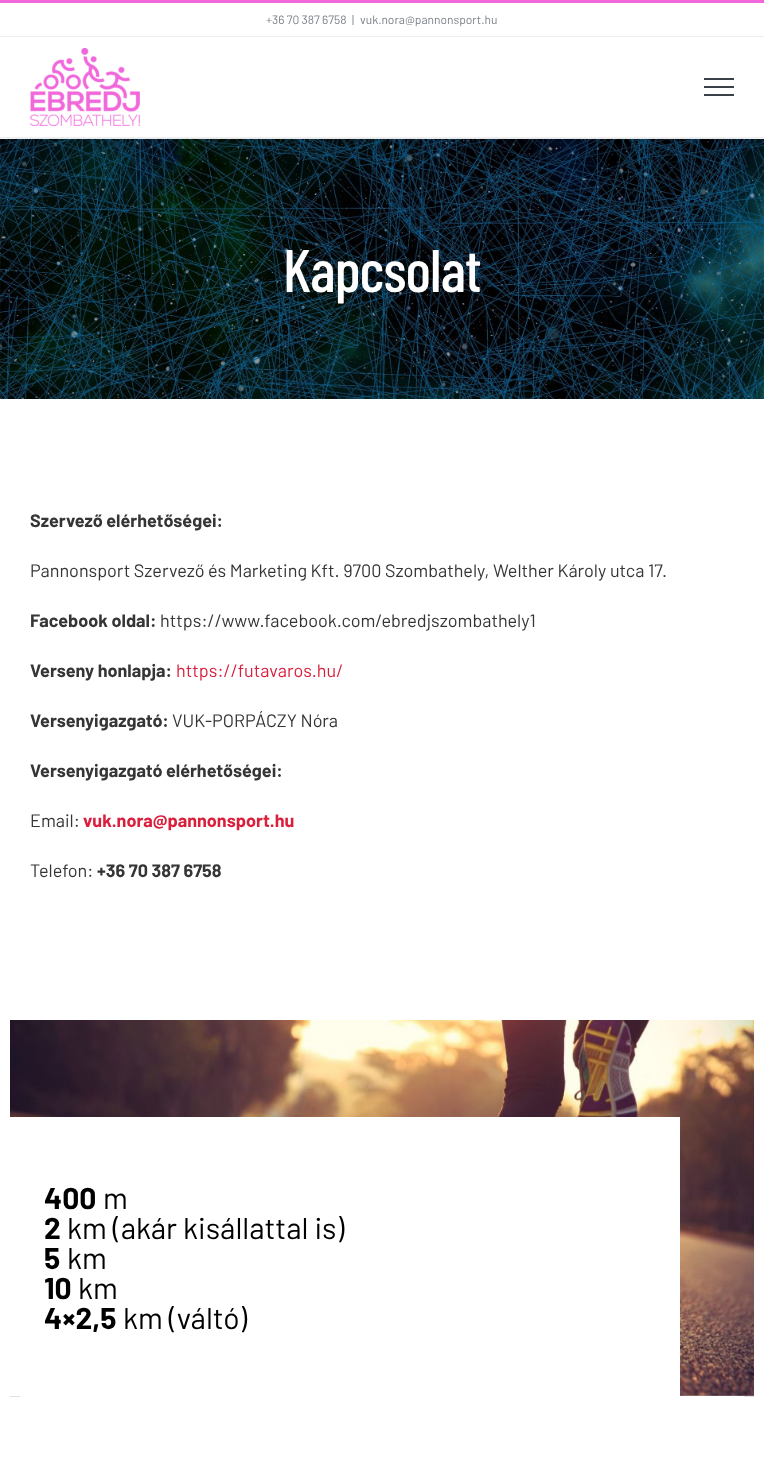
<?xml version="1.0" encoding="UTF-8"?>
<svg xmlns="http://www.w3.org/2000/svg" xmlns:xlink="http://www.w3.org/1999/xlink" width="764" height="1478">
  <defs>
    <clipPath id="clip1"><rect x="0" y="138" width="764" height="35" /></clipPath>
  </defs>
  <rect width="100%" height="100%" fill="#ffffff" />
  <image x="0" y="139" width="764" height="260" xlink:href="image2.png" />
  <g clip-path="url(#clip1)">
    <rect x="2" y="12" width="760" height="134" fill="#000000" fill-opacity="0.14" filter="blur(25px)" />
  </g>
  <rect width="764" height="3" fill="#f168db" />
  <rect y="36" width="764" height="1" fill="#eeeeee" />
  <rect y="137" width="764" height="1" fill="#eeeeee" />
  <image x="30" y="48" width="110" height="78" xlink:href="image1.png" />
  <rect x="704" y="78" width="30" height="2" fill="#3a4149" />
  <rect x="704" y="86" width="30" height="2" fill="#3a4149" />
  <rect x="704" y="94" width="30" height="2" fill="#3a4149" />
  <image x="10" y="1020" width="744" height="377" xlink:href="image3.png" />
  <rect x="10" y="1117" width="670" height="279" fill="#ffffff" />
  <rect x="20" y="1396" width="724" height="1" fill="#ffffff" />
  <text x="266" y="24" style="font-family: Barlow; font-size: 12px; fill: #7b838b">+36 70 387 6758</text>
  <text x="352" y="24" style="font-family: Barlow; font-size: 12px; fill: #7b838b">|</text>
  <text x="360" y="24" style="font-family: Barlow; font-size: 12px; fill: #7b838b">vuk.nora@pannonsport.hu</text>
  <text x="283" y="292" style="font-family: Barlow Condensed; font-size: 60px; font-weight: 500; letter-spacing: -1px; fill: #ffffff">Kapcsolat</text>
  <text x="30" y="527" style="font-family: Barlow; font-size: 18px; font-weight: bold; fill: #353535">Szervező elérhetőségei:</text>
  <text x="30" y="577" style="font-family: Barlow; font-size: 18px; fill: #353535">Pannonsport Szervező és Marketing Kft. 9700 Szombathely, Welther Károly utca 17.</text>
  <text x="30" y="627" style="font-family: Barlow; font-size: 18px; font-weight: bold; fill: #353535">Facebook oldal:</text>
  <text x="160" y="627" style="font-family: Barlow; font-size: 18px; fill: #353535">https://www.facebook.com/ebredjszombathely1</text>
  <text x="30" y="677" style="font-family: Barlow; font-size: 18px; font-weight: bold; fill: #353535">Verseny honlapja:</text>
  <text x="176" y="677" style="font-family: Barlow; font-size: 18px; fill: #da1f3d">https://futavaros.hu/</text>
  <text x="30" y="727" style="font-family: Barlow; font-size: 18px; font-weight: bold; fill: #353535">Versenyigazgató:</text>
  <text x="172" y="727" style="font-family: Barlow; font-size: 18px; fill: #353535">VUK-PORPÁCZY Nóra</text>
  <text x="30" y="777" style="font-family: Barlow; font-size: 18px; font-weight: bold; fill: #353535">Versenyigazgató elérhetőségei:</text>
  <text x="30" y="827" style="font-family: Barlow; font-size: 18px; fill: #353535">Email:</text>
  <text x="83" y="827" style="font-family: Barlow; font-size: 18px; font-weight: bold; fill: #da1f3d">vuk.nora@pannonsport.hu</text>
  <text x="30" y="877" style="font-family: Barlow; font-size: 18px; fill: #353535">Telefon:</text>
  <text x="97" y="877" style="font-family: Barlow; font-size: 18px; font-weight: bold; fill: #353535">+36 70 387 6758</text>
  <text x="44" y="1209" style="font-family: Barlow; font-size: 30px; font-weight: bold; fill: #000000">400</text>
  <text x="103" y="1209" style="font-family: Barlow; font-size: 30px; fill: #000000">m</text>
  <text x="44" y="1239" style="font-family: Barlow; font-size: 30px; font-weight: bold; fill: #000000">2</text>
  <text x="67" y="1239" style="font-family: Barlow; font-size: 30px; fill: #000000">km (akár kisállattal is)</text>
  <text x="44" y="1269" style="font-family: Barlow; font-size: 30px; font-weight: bold; fill: #000000">5</text>
  <text x="67" y="1269" style="font-family: Barlow; font-size: 30px; fill: #000000">km</text>
  <text x="44" y="1299" style="font-family: Barlow; font-size: 30px; font-weight: bold; fill: #000000">10</text>
  <text x="78" y="1299" style="font-family: Barlow; font-size: 30px; fill: #000000">km</text>
  <text x="44" y="1329" style="font-family: Barlow; font-size: 30px; font-weight: bold; fill: #000000">4×2,5</text>
  <text x="123" y="1329" style="font-family: Barlow; font-size: 30px; fill: #000000">km (váltó)</text>
</svg>
